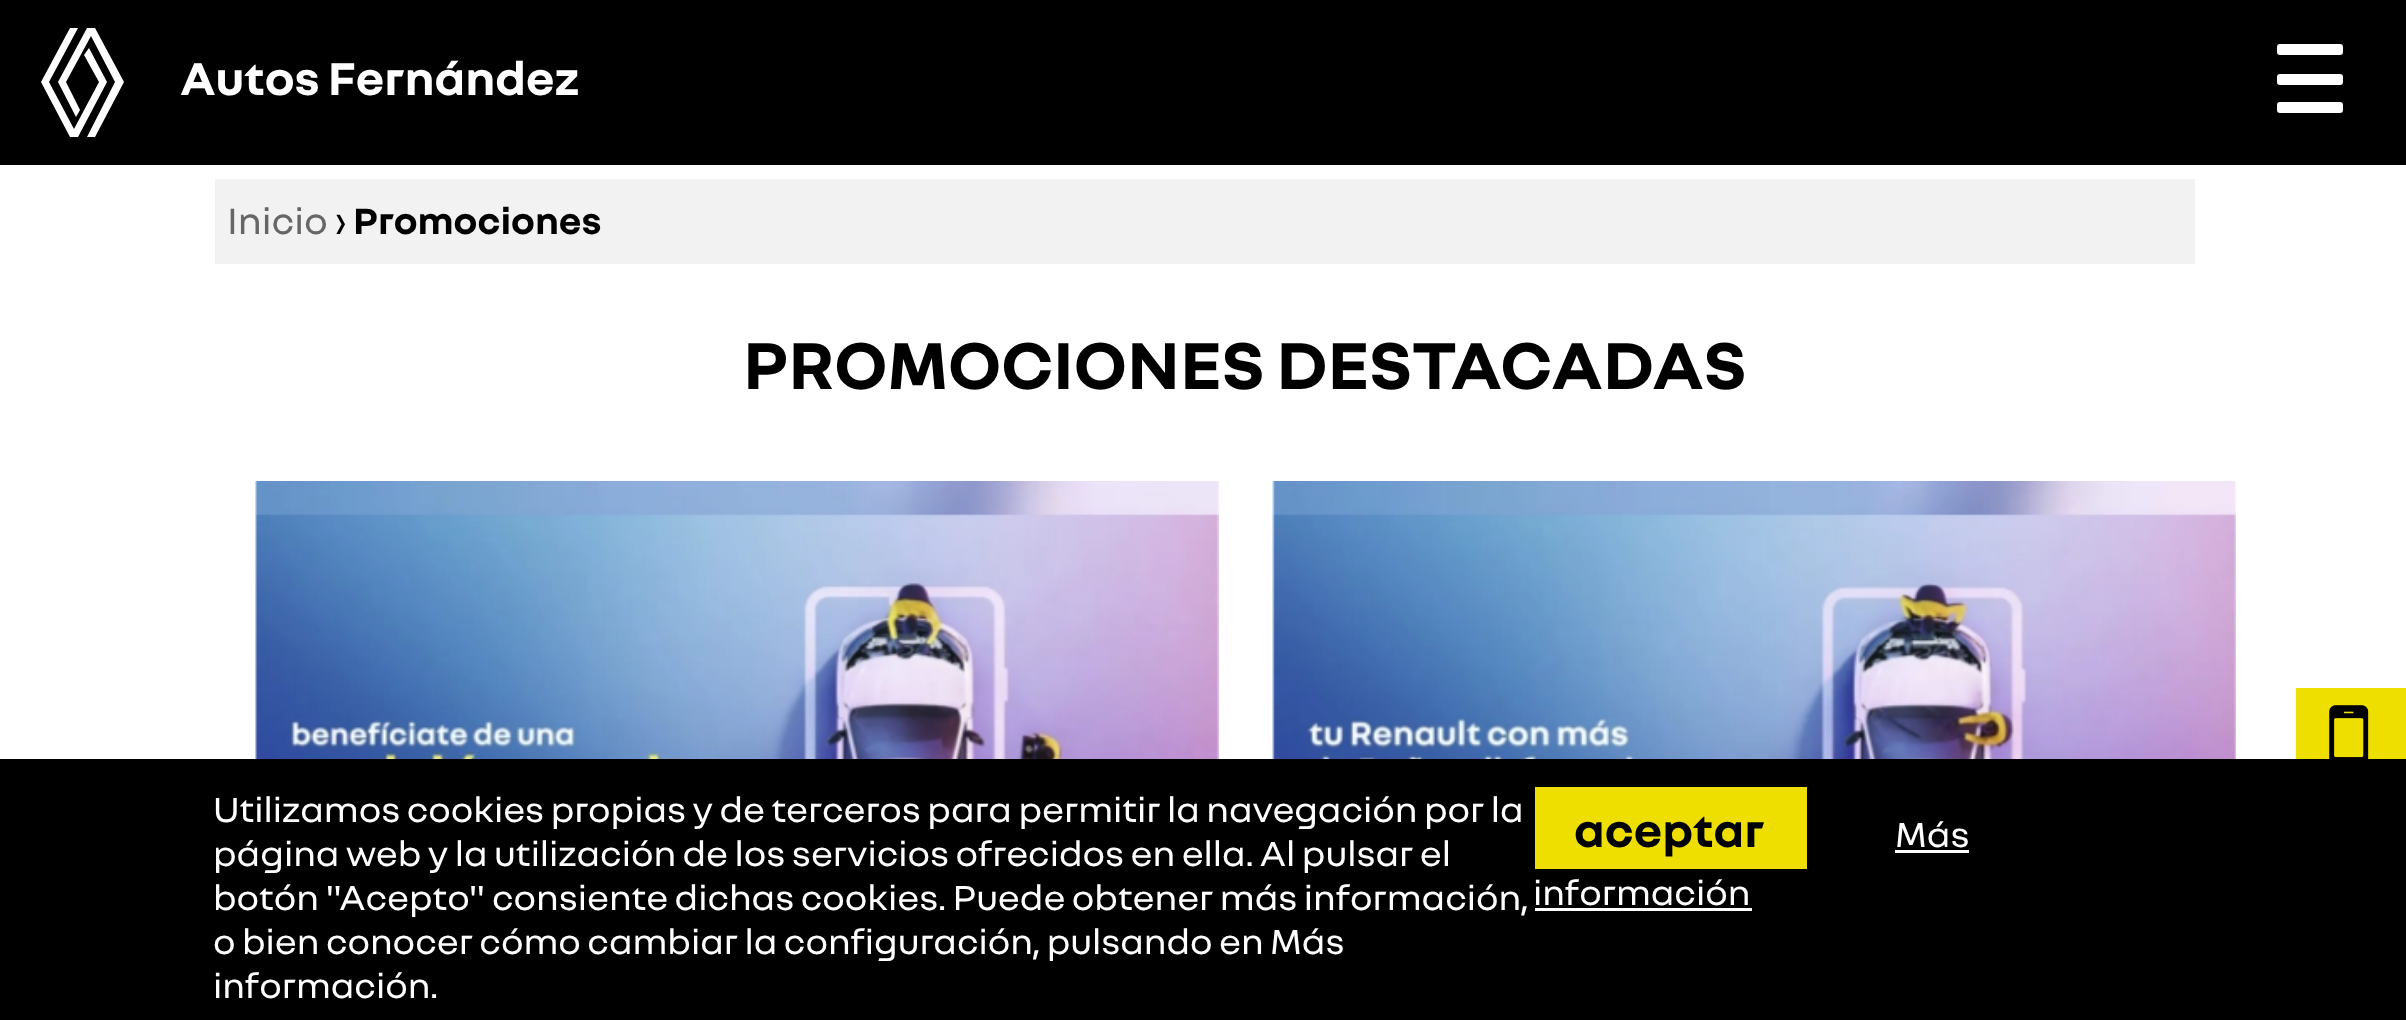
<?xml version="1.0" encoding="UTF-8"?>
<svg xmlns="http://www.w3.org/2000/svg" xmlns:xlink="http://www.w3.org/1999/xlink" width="2406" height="1020">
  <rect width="100%" height="100%" fill="#ffffff" />
  <rect width="2406" height="165" fill="#000000" />
  <path d="M 124 82 l -29 -54 h -8 l -29 54 l 18 35 l 4 -7 l -14 -28 l 25 -46 l 24 46 l -28 55 h 8 z m -17 0 l -18 -34 l -5 7 l 15 27 l -25 47 l -25 -47 l 29 -54 h -8 l -29 54 l 29 55 h 8 z" fill="#ffffff" fill-rule="evenodd" />
  <rect x="2277" y="74" width="66" height="11" rx="3" fill="#ffffff" />
  <rect x="2277" y="44" width="66" height="11" rx="3" fill="#ffffff" />
  <rect x="2277" y="102" width="66" height="11" rx="3" fill="#ffffff" />
  <rect x="2296" y="688" width="110" height="71" fill="#efdf00" />
  <image x="2329" y="705" width="40" height="54" xlink:href="image1.png" />
  <rect x="215" y="179" width="1980" height="85" fill="#f2f2f2" />
  <image x="255" y="481" width="964" height="278" xlink:href="image2.png" />
  <image x="1272" y="481" width="964" height="278" xlink:href="image3.png" />
  <rect y="759" width="2406" height="261" fill="#000000" />
  <rect x="1535" y="787" width="272" height="82" fill="#efdf00" />
  <rect x="1895" y="850" width="74" height="3" fill="#ffffff" />
  <rect x="1535" y="908" width="217" height="3" fill="#ffffff" />
  <text x="180" y="95" style="font-family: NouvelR; font-size: 49.5px; font-weight: bold; fill: #ffffff">Autos Fernández</text>
  <text x="227" y="234" style="font-family: NouvelR; font-size: 39.5px; fill: #666666">Inicio</text>
  <text x="335" y="234" style="font-family: NouvelR; font-size: 39.5px; fill: #000000">›</text>
  <text x="353" y="234" style="font-family: NouvelR; font-size: 39.5px; font-weight: bold; fill: #000000">Promociones</text>
  <text x="743" y="389" style="font-family: NouvelR; font-size: 71.5px; font-weight: bold; fill: #000000">PROMOCIONES DESTACADAS</text>
  <text x="213" y="822" style="font-family: NouvelR; font-size: 37.4px; fill: #ffffff">Utilizamos cookies propias y de terceros para permitir la navegación por la</text>
  <text x="213" y="866" style="font-family: NouvelR; font-size: 37.4px; fill: #ffffff">página web y la utilización de los servicios ofrecidos en ella. Al pulsar el</text>
  <text x="213" y="910" style="font-family: NouvelR; font-size: 37.4px; fill: #ffffff">botón "Acepto" consiente dichas cookies. Puede obtener más información,</text>
  <text x="213" y="954" style="font-family: NouvelR; font-size: 37.4px; fill: #ffffff">o bien conocer cómo cambiar la configuración, pulsando en</text>
  <text x="1270" y="954" style="font-family: NouvelR; font-size: 37.4px; fill: #ffffff">Más</text>
  <text x="213" y="998" style="font-family: NouvelR; font-size: 37.4px; fill: #ffffff">información.</text>
  <text x="1574" y="847" style="font-family: NouvelR; font-size: 49.5px; font-weight: bold; fill: #000000">aceptar</text>
  <text x="1895" y="847" style="font-family: NouvelR; font-size: 37.4px; fill: #ffffff">Más</text>
  <text x="1533" y="905" style="font-family: NouvelR; font-size: 37.4px; fill: #ffffff">información</text>
</svg>
